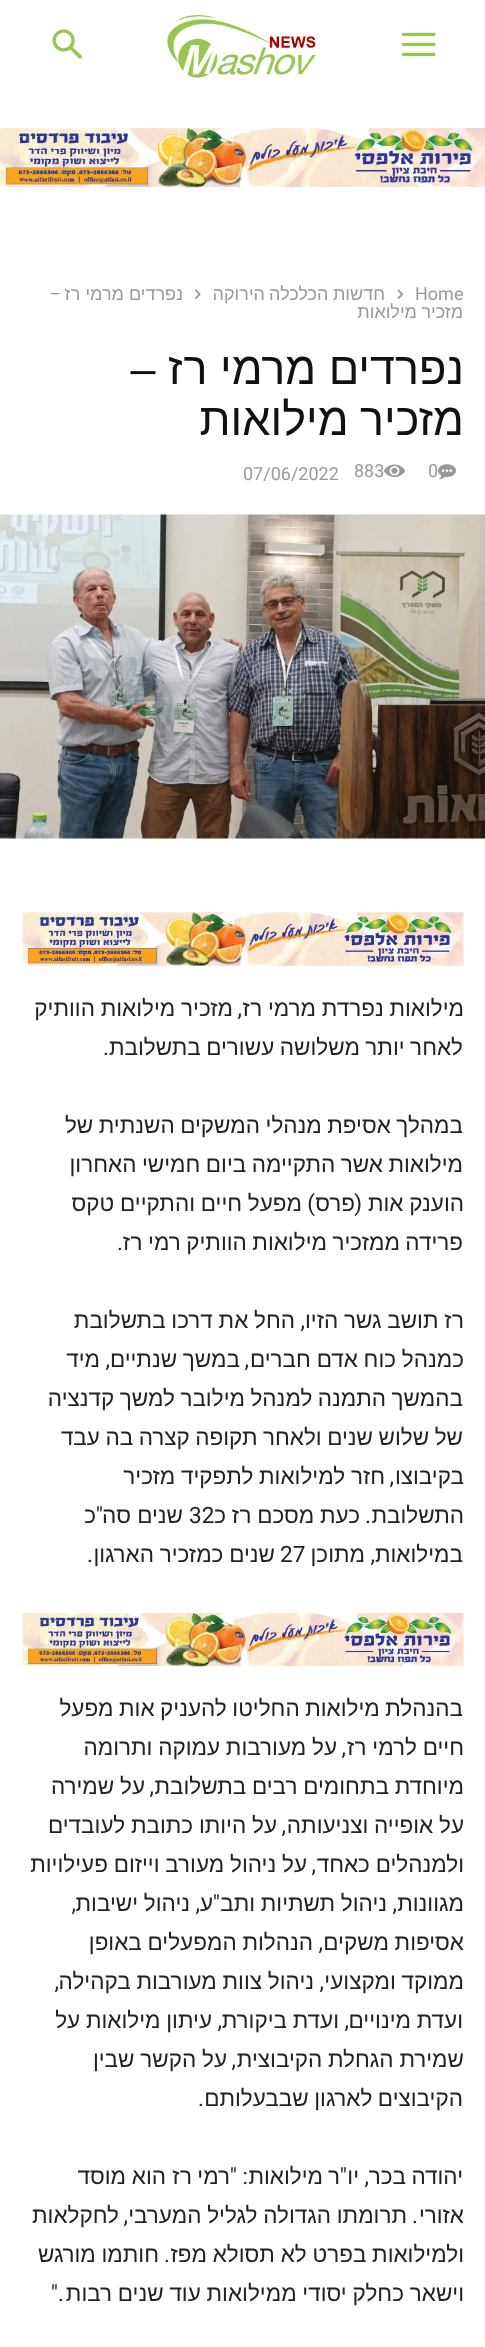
<?xml version="1.0" encoding="UTF-8"?>
<svg xmlns="http://www.w3.org/2000/svg" xmlns:xlink="http://www.w3.org/1999/xlink" width="485" height="2347">
  <rect width="100%" height="100%" fill="#ffffff" />
  <image x="402" y="32" width="34" height="25" xlink:href="image1.png" />
  <image x="167" y="15" width="149" height="63" xlink:href="image2.png" />
  <image x="52" y="29" width="30" height="30" xlink:href="image3.png" />
  <image x="0" y="127" width="485" height="61" xlink:href="image4.png" />
  <image x="397" y="289" width="6" height="10" xlink:href="image5.png" />
  <image x="195" y="289" width="6" height="10" xlink:href="image6.png" />
  <image x="438" y="464" width="18" height="16" xlink:href="image7.png" />
  <image x="384" y="464" width="21" height="14" xlink:href="image8.png" />
  <image x="0" y="514" width="485" height="325" xlink:href="image9.png" />
  <image x="22" y="912" width="442" height="54" xlink:href="image10.png" />
  <image x="22" y="1612" width="442" height="55" xlink:href="image11.png" />
  <text x="415" y="300" style="font-family: Roboto; font-size: 18px; fill: #999999">Home</text>
  <text x="385" y="300" word-spacing="-0.5" style="font-family: Liberation Sans; font-size: 18px; direction: rtl; fill: #999999">חדשות הכלכלה</text>
  <text x="265" y="300" style="font-family: Liberation Sans; font-size: 18px; direction: rtl; fill: #999999">הירוקה</text>
  <text x="183" y="300" style="font-family: Liberation Sans; font-size: 18px; direction: rtl; fill: #999999">נפרדים מרמי רז</text>
  <text x="61" y="300" style="font-family: Roboto; font-size: 18px; direction: rtl; fill: #999999">–</text>
  <text x="463" y="318" word-spacing="-0.5" style="font-family: Liberation Sans; font-size: 18px; direction: rtl; fill: #999999">מזכיר מילואות</text>
  <text x="464" y="384" style="font-family: Liberation Sans; font-size: 45px; direction: rtl; fill: #111111">נפרדים מרמי רז –</text>
  <text x="464" y="435" word-spacing="-1" style="font-family: Liberation Sans; font-size: 45px; direction: rtl; fill: #111111">מזכיר מילואות</text>
  <text x="428" y="477" style="font-family: Roboto; font-size: 18px; fill: #999999">0</text>
  <text x="354" y="477" style="font-family: Roboto; font-size: 18px; fill: #999999">883</text>
  <text x="243" y="480" style="font-family: Roboto; font-size: 18px; fill: #999999">07/06/2022</text>
  <text x="464" y="1016" word-spacing="-0.5" style="font-family: Liberation Sans; font-size: 22.5px; direction: rtl; fill: #222222">מילואות נפרדת מרמי רז</text>
  <text x="242" y="1016" style="font-family: Roboto; font-size: 22.5px; direction: rtl; fill: #222222">,</text>
  <text x="233" y="1016" word-spacing="-0.5" style="font-family: Liberation Sans; font-size: 22.5px; direction: rtl; fill: #222222">מזכיר מילואות הוותיק</text>
  <text x="463" y="1055" word-spacing="-0.75" style="font-family: Liberation Sans; font-size: 22.5px; direction: rtl; fill: #222222">לאחר יותר משלושה עשורים בתשלובת</text>
  <text x="109" y="1055" style="font-family: Roboto; font-size: 22.5px; direction: rtl; fill: #222222">.</text>
  <text x="463" y="1133" word-spacing="-0.75" style="font-family: Liberation Sans; font-size: 22.5px; direction: rtl; fill: #222222">במהלך אסיפת מנהלי המשקים השנתית של</text>
  <text x="463" y="1172" word-spacing="-0.75" style="font-family: Liberation Sans; font-size: 22.5px; direction: rtl; fill: #222222">מילואות אשר התקיימה ביום חמישי האחרון</text>
  <text x="464" y="1211" word-spacing="-0.5" style="font-family: Liberation Sans; font-size: 22.5px; direction: rtl; fill: #222222">הוענק אות</text>
  <text x="362" y="1211" style="font-family: Roboto; font-size: 22.5px; direction: rtl; fill: #222222">(</text>
  <text x="355" y="1211" style="font-family: Liberation Sans; font-size: 22.5px; direction: rtl; fill: #222222">פרס</text>
  <text x="315" y="1211" style="font-family: Roboto; font-size: 22.5px; direction: rtl; fill: #222222">)</text>
  <text x="302" y="1211" word-spacing="-0.5" style="font-family: Liberation Sans; font-size: 22.5px; direction: rtl; fill: #222222">מפעל חיים והתקיים טקס</text>
  <text x="463" y="1250" word-spacing="-0.75" style="font-family: Liberation Sans; font-size: 22.5px; direction: rtl; fill: #222222">פרידה ממזכיר מילואות הוותיק רמי רז</text>
  <text x="123" y="1250" style="font-family: Roboto; font-size: 22.5px; direction: rtl; fill: #222222">.</text>
  <text x="464" y="1328" word-spacing="-0.5" style="font-family: Liberation Sans; font-size: 22.5px; direction: rtl; fill: #222222">רז תושב גשר הזיו</text>
  <text x="305" y="1328" style="font-family: Roboto; font-size: 22.5px; direction: rtl; fill: #222222">,</text>
  <text x="295" y="1328" word-spacing="-0.5" style="font-family: Liberation Sans; font-size: 22.5px; direction: rtl; fill: #222222">החל את דרכו בתשלובת</text>
  <text x="464" y="1367" word-spacing="-0.5" style="font-family: Liberation Sans; font-size: 22.5px; direction: rtl; fill: #222222">כמנהל כוח אדם חברים</text>
  <text x="249" y="1367" style="font-family: Roboto; font-size: 22.5px; direction: rtl; fill: #222222">,</text>
  <text x="240" y="1367" word-spacing="-0.5" style="font-family: Liberation Sans; font-size: 22.5px; direction: rtl; fill: #222222">במשך שנתיים</text>
  <text x="110" y="1367" style="font-family: Roboto; font-size: 22.5px; direction: rtl; fill: #222222">,</text>
  <text x="100" y="1367" style="font-family: Liberation Sans; font-size: 22.5px; direction: rtl; fill: #222222">מיד</text>
  <text x="463" y="1406" word-spacing="-0.75" style="font-family: Liberation Sans; font-size: 22.5px; direction: rtl; fill: #222222">בהמשך התמנה למנהל מילובר למשך קדנציה</text>
  <text x="463" y="1445" word-spacing="-0.75" style="font-family: Liberation Sans; font-size: 22.5px; direction: rtl; fill: #222222">של שלוש שנים ולאחר תקופה קצרה בה עבד</text>
  <text x="464" y="1484" style="font-family: Liberation Sans; font-size: 22.5px; direction: rtl; fill: #222222">בקיבוצו</text>
  <text x="394" y="1484" style="font-family: Roboto; font-size: 22.5px; direction: rtl; fill: #222222">,</text>
  <text x="385" y="1484" word-spacing="-0.5" style="font-family: Liberation Sans; font-size: 22.5px; direction: rtl; fill: #222222">חזר למילואות לתפקיד מזכיר</text>
  <text x="464" y="1523" style="font-family: Liberation Sans; font-size: 22.5px; direction: rtl; fill: #222222">התשלובת</text>
  <text x="371" y="1523" style="font-family: Roboto; font-size: 22.5px; direction: rtl; fill: #222222">.</text>
  <text x="360" y="1523" word-spacing="-0.5" style="font-family: Liberation Sans; font-size: 22.5px; direction: rtl; fill: #222222">כעת מסכם רז כ</text>
  <text x="189" y="1523" style="font-family: Roboto; font-size: 22.5px; fill: #222222">32</text>
  <text x="183" y="1523" style="font-family: Liberation Sans; font-size: 22.5px; direction: rtl; fill: #222222">שנים סה</text>
  <text x="103" y="1523" style="font-family: Roboto; font-size: 22.5px; direction: rtl; fill: #222222">"</text>
  <text x="96" y="1523" style="font-family: Liberation Sans; font-size: 22.5px; direction: rtl; fill: #222222">כ</text>
  <text x="463" y="1562" style="font-family: Liberation Sans; font-size: 22.5px; direction: rtl; fill: #222222">במילואות</text>
  <text x="375" y="1562" style="font-family: Roboto; font-size: 22.5px; direction: rtl; fill: #222222">,</text>
  <text x="365" y="1562" style="font-family: Liberation Sans; font-size: 22.5px; direction: rtl; fill: #222222">מתוכן</text>
  <text x="280" y="1562" style="font-family: Roboto; font-size: 22.5px; fill: #222222">27</text>
  <text x="275" y="1562" word-spacing="-0.5" style="font-family: Liberation Sans; font-size: 22.5px; direction: rtl; fill: #222222">שנים כמזכיר הארגון</text>
  <text x="93" y="1562" style="font-family: Roboto; font-size: 22.5px; direction: rtl; fill: #222222">.</text>
  <text x="463" y="1716" word-spacing="-0.75" style="font-family: Liberation Sans; font-size: 22.5px; direction: rtl; fill: #222222">בהנהלת מילואות החליטו להעניק אות מפעל</text>
  <text x="464" y="1755" word-spacing="-0.5" style="font-family: Liberation Sans; font-size: 22.5px; direction: rtl; fill: #222222">חיים לרמי רז</text>
  <text x="346" y="1755" style="font-family: Roboto; font-size: 22.5px; direction: rtl; fill: #222222">,</text>
  <text x="337" y="1755" word-spacing="-0.5" style="font-family: Liberation Sans; font-size: 22.5px; direction: rtl; fill: #222222">על מעורבות עמוקה ותרומה</text>
  <text x="464" y="1794" word-spacing="-0.5" style="font-family: Liberation Sans; font-size: 22.5px; direction: rtl; fill: #222222">מיוחדת בתחומים רבים בתשלובת</text>
  <text x="154" y="1794" style="font-family: Roboto; font-size: 22.5px; direction: rtl; fill: #222222">,</text>
  <text x="145" y="1794" word-spacing="-0.5" style="font-family: Liberation Sans; font-size: 22.5px; direction: rtl; fill: #222222">על שמירה</text>
  <text x="464" y="1833" word-spacing="-0.5" style="font-family: Liberation Sans; font-size: 22.5px; direction: rtl; fill: #222222">על אופייה וצניעותה</text>
  <text x="286" y="1833" style="font-family: Roboto; font-size: 22.5px; direction: rtl; fill: #222222">,</text>
  <text x="277" y="1833" word-spacing="-0.5" style="font-family: Liberation Sans; font-size: 22.5px; direction: rtl; fill: #222222">על היותו כתובת לעובדים</text>
  <text x="464" y="1872" word-spacing="-0.5" style="font-family: Liberation Sans; font-size: 22.5px; direction: rtl; fill: #222222">ולמנהלים כאחד</text>
  <text x="316" y="1872" style="font-family: Roboto; font-size: 22.5px; direction: rtl; fill: #222222">,</text>
  <text x="307" y="1872" word-spacing="-0.5" style="font-family: Liberation Sans; font-size: 22.5px; direction: rtl; fill: #222222">על ניהול מעורב וייזום פעילויות</text>
  <text x="464" y="1911" style="font-family: Liberation Sans; font-size: 22.5px; direction: rtl; fill: #222222">מגוונות</text>
  <text x="397" y="1911" style="font-family: Roboto; font-size: 22.5px; direction: rtl; fill: #222222">,</text>
  <text x="387" y="1911" word-spacing="-0.5" style="font-family: Liberation Sans; font-size: 22.5px; direction: rtl; fill: #222222">ניהול תשתיות ותב</text>
  <text x="220" y="1911" style="font-family: Roboto; font-size: 22.5px; direction: rtl; fill: #222222">"</text>
  <text x="213" y="1911" style="font-family: Liberation Sans; font-size: 22.5px; direction: rtl; fill: #222222">ע</text>
  <text x="200" y="1911" style="font-family: Roboto; font-size: 22.5px; direction: rtl; fill: #222222">,</text>
  <text x="190" y="1911" word-spacing="-0.5" style="font-family: Liberation Sans; font-size: 22.5px; direction: rtl; fill: #222222">ניהול ישיבות</text>
  <text x="76" y="1911" style="font-family: Roboto; font-size: 22.5px; direction: rtl; fill: #222222">,</text>
  <text x="464" y="1950" word-spacing="-0.5" style="font-family: Liberation Sans; font-size: 22.5px; direction: rtl; fill: #222222">אסיפות משקים</text>
  <text x="323" y="1950" style="font-family: Roboto; font-size: 22.5px; direction: rtl; fill: #222222">,</text>
  <text x="313" y="1950" word-spacing="-0.5" style="font-family: Liberation Sans; font-size: 22.5px; direction: rtl; fill: #222222">הנהלות המפעלים באופן</text>
  <text x="464" y="1989" word-spacing="-0.5" style="font-family: Liberation Sans; font-size: 22.5px; direction: rtl; fill: #222222">ממוקד ומקצועי</text>
  <text x="324" y="1989" style="font-family: Roboto; font-size: 22.5px; direction: rtl; fill: #222222">,</text>
  <text x="314" y="1989" word-spacing="-0.5" style="font-family: Liberation Sans; font-size: 22.5px; direction: rtl; fill: #222222">ניהול צוות מעורבות בקהילה</text>
  <text x="59" y="1989" style="font-family: Roboto; font-size: 22.5px; direction: rtl; fill: #222222">,</text>
  <text x="463" y="2028" word-spacing="-0.5" style="font-family: Liberation Sans; font-size: 22.5px; direction: rtl; fill: #222222">ועדת מינויים</text>
  <text x="349" y="2028" style="font-family: Roboto; font-size: 22.5px; direction: rtl; fill: #222222">,</text>
  <text x="339" y="2028" word-spacing="-0.5" style="font-family: Liberation Sans; font-size: 22.5px; direction: rtl; fill: #222222">ועדת ביקורת</text>
  <text x="222" y="2028" style="font-family: Roboto; font-size: 22.5px; direction: rtl; fill: #222222">,</text>
  <text x="212" y="2028" word-spacing="-0.5" style="font-family: Liberation Sans; font-size: 22.5px; direction: rtl; fill: #222222">עיתון מילואות על</text>
  <text x="464" y="2067" word-spacing="-0.5" style="font-family: Liberation Sans; font-size: 22.5px; direction: rtl; fill: #222222">שמירת הגחלת הקיבוצית</text>
  <text x="236" y="2067" style="font-family: Roboto; font-size: 22.5px; direction: rtl; fill: #222222">,</text>
  <text x="227" y="2067" word-spacing="-0.5" style="font-family: Liberation Sans; font-size: 22.5px; direction: rtl; fill: #222222">על הקשר שבין</text>
  <text x="463" y="2106" word-spacing="-0.75" style="font-family: Liberation Sans; font-size: 22.5px; direction: rtl; fill: #222222">הקיבוצים לארגון שבבעלותם</text>
  <text x="204" y="2106" style="font-family: Roboto; font-size: 22.5px; direction: rtl; fill: #222222">.</text>
  <text x="463" y="2184" style="font-family: Liberation Sans; font-size: 22.5px; direction: rtl; fill: #222222">יהודה</text>
  <text x="406" y="2184" style="font-family: Liberation Sans; font-size: 22.5px; direction: rtl; fill: #222222">בכר</text>
  <text x="369" y="2184" style="font-family: Roboto; font-size: 22.5px; direction: rtl; fill: #222222">,</text>
  <text x="359" y="2184" style="font-family: Liberation Sans; font-size: 22.5px; direction: rtl; fill: #222222">יו</text>
  <text x="347" y="2184" style="font-family: Roboto; font-size: 22.5px; direction: rtl; fill: #222222">"</text>
  <text x="340" y="2184" style="font-family: Liberation Sans; font-size: 22.5px; direction: rtl; fill: #222222">ר</text>
  <text x="323" y="2184" style="font-family: Liberation Sans; font-size: 22.5px; direction: rtl; fill: #222222">מילואות</text>
  <text x="248" y="2184" style="font-family: Roboto; font-size: 22.5px; direction: rtl; fill: #222222">: "</text>
  <text x="230" y="2184" style="font-family: Liberation Sans; font-size: 22.5px; direction: rtl; fill: #222222">רמי</text>
  <text x="192" y="2184" style="font-family: Liberation Sans; font-size: 22.5px; direction: rtl; fill: #222222">רז</text>
  <text x="166" y="2184" style="font-family: Liberation Sans; font-size: 22.5px; direction: rtl; fill: #222222">הוא</text>
  <text x="126" y="2184" style="font-family: Liberation Sans; font-size: 22.5px; direction: rtl; fill: #222222">מוסד</text>
  <text x="464" y="2223" style="font-family: Liberation Sans; font-size: 22.5px; direction: rtl; fill: #222222">אזורי</text>
  <text x="418" y="2223" style="font-family: Roboto; font-size: 22.5px; direction: rtl; fill: #222222">.</text>
  <text x="407" y="2223" word-spacing="-0.5" style="font-family: Liberation Sans; font-size: 22.5px; direction: rtl; fill: #222222">תרומתו הגדולה לגליל המערבי</text>
  <text x="128" y="2223" style="font-family: Roboto; font-size: 22.5px; direction: rtl; fill: #222222">,</text>
  <text x="119" y="2223" style="font-family: Liberation Sans; font-size: 22.5px; direction: rtl; fill: #222222">לחקלאות</text>
  <text x="464" y="2262" word-spacing="-0.5" style="font-family: Liberation Sans; font-size: 22.5px; direction: rtl; fill: #222222">ולמילואות בפרט לא תסולא מפז</text>
  <text x="170" y="2262" style="font-family: Roboto; font-size: 22.5px; direction: rtl; fill: #222222">.</text>
  <text x="159" y="2262" word-spacing="-0.5" style="font-family: Liberation Sans; font-size: 22.5px; direction: rtl; fill: #222222">חותמו מורגש</text>
  <text x="464" y="2301" word-spacing="-0.5" style="font-family: Liberation Sans; font-size: 22.5px; direction: rtl; fill: #222222">וישאר כחלק יסודי ממילואות עוד שנים רבות</text>
  <text x="64" y="2301" style="font-family: Roboto; font-size: 22.5px; direction: rtl; fill: #222222">."</text>
</svg>
